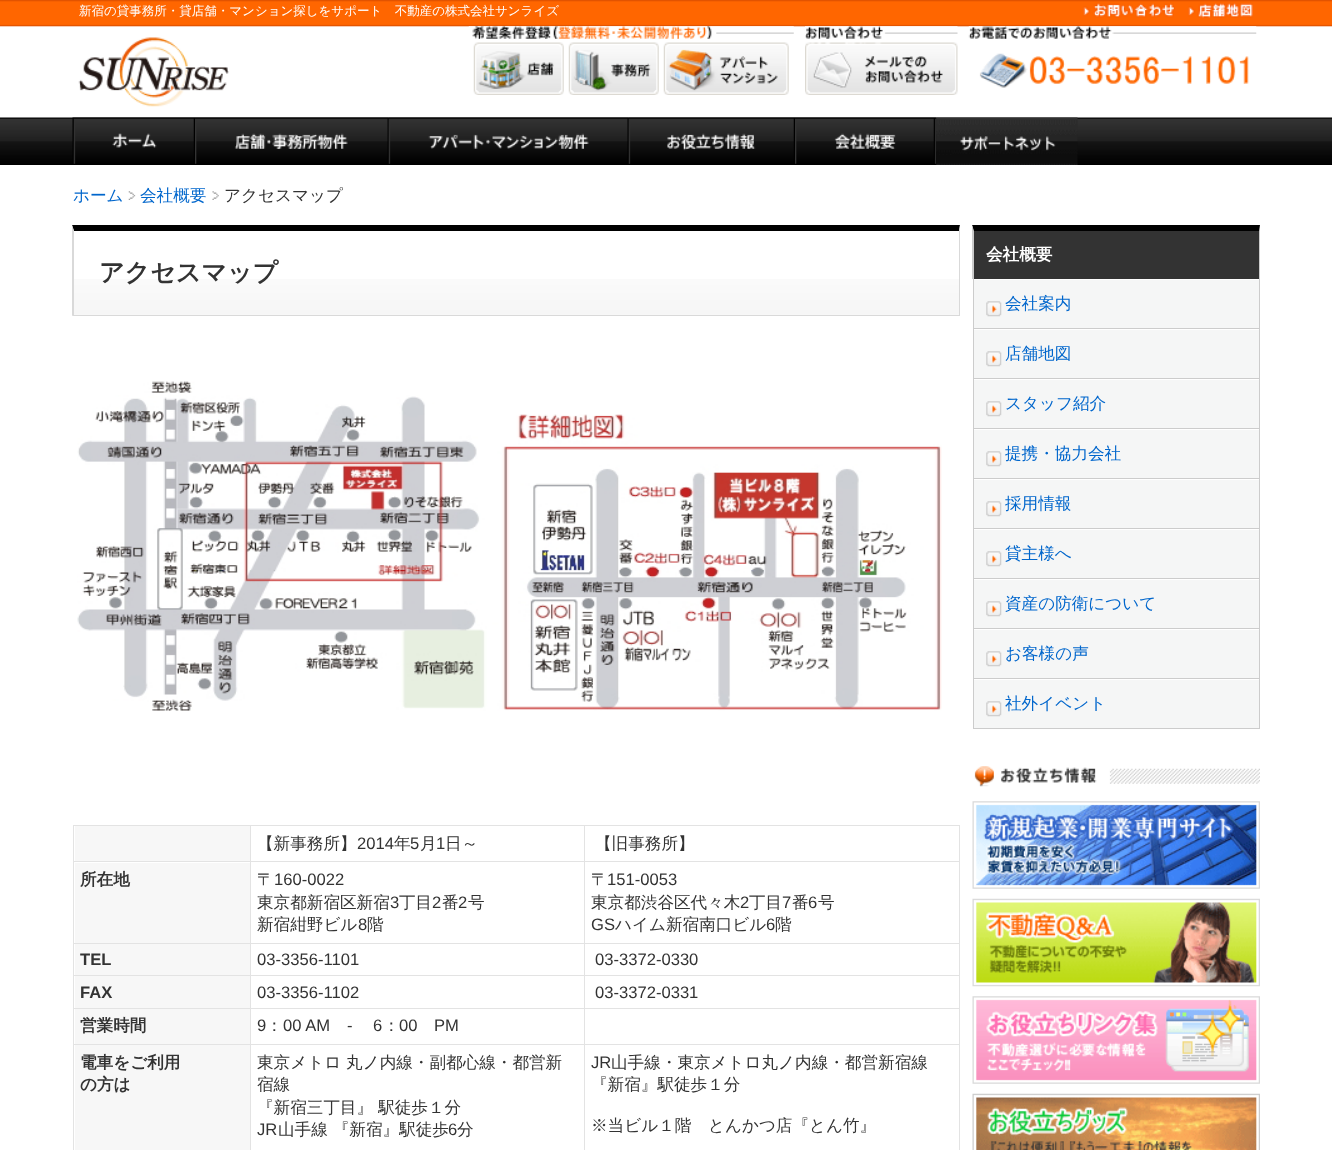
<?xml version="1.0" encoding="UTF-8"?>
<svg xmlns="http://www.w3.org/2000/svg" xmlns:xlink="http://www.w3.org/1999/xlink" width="1332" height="1150">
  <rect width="100%" height="100%" fill="#ffffff" />
  <image x="0" y="0" width="1332" height="165" xlink:href="image1.png" />
  <image x="1083" y="3" width="92" height="15" xlink:href="image2.png" />
  <image x="1188" y="3" width="65" height="15" xlink:href="image3.png" />
  <image x="78" y="37" width="151" height="70" xlink:href="image4.png" />
  <image x="468" y="26" width="326" height="13" xlink:href="image5.png" />
  <image x="473" y="42" width="91" height="53" xlink:href="image6.png" />
  <image x="568" y="42" width="91" height="53" xlink:href="image7.png" />
  <image x="663" y="42" width="126" height="53" xlink:href="image8.png" />
  <image x="805" y="26" width="153" height="13" xlink:href="image9.png" />
  <image x="805" y="42" width="153" height="53" xlink:href="image10.png" />
  <image x="968" y="26" width="289" height="13" xlink:href="image11.png" />
  <image x="979" y="53" width="270" height="35" xlink:href="image12.png" />
  <image x="72" y="117" width="123" height="47" xlink:href="image13.png" />
  <image x="195" y="117" width="194" height="47" xlink:href="image14.png" />
  <image x="388" y="117" width="241" height="47" xlink:href="image15.png" />
  <image x="628" y="117" width="167" height="47" xlink:href="image16.png" />
  <image x="795" y="117" width="142" height="47" xlink:href="image17.png" />
  <image x="936" y="117" width="142" height="48" xlink:href="image18.png" />
  <image x="128" y="191" width="8" height="9" xlink:href="image19.png" />
  <image x="212" y="191" width="7" height="9" xlink:href="image20.png" />
  <image x="74" y="279" width="885" height="36" xlink:href="image21.png" />
  <path d="M 72 225 h 888 l -1 6 h -885 z" fill="#000000" />
  <path d="M 960 225 v 91 l -1 -1 v -84 z" fill="#d9d9d9" />
  <rect x="73" y="315" width="887" height="1" fill="#d9d9d9" />
  <path d="M 72 316 v -91 l 2 6 v 84 z" fill="#d9d9d9" />
  <image x="77" y="381" width="865" height="330" xlink:href="image22.png" />
  <rect x="73" y="825" width="887" height="1" fill="#e3e3e3" />
  <rect x="959" y="825" width="1" height="325" fill="#e3e3e3" />
  <rect x="73" y="825" width="1" height="325" fill="#e3e3e3" />
  <rect x="75" y="826" width="175" height="35" fill="#f7f7f7" />
  <rect x="584" y="1044" width="1" height="106" fill="#e3e3e3" />
  <rect x="584" y="1044" width="376" height="1" fill="#e3e3e3" />
  <rect x="584" y="1008" width="1" height="37" fill="#e3e3e3" />
  <rect x="584" y="1008" width="376" height="1" fill="#e3e3e3" />
  <rect x="584" y="975" width="1" height="34" fill="#e3e3e3" />
  <rect x="584" y="975" width="376" height="1" fill="#e3e3e3" />
  <rect x="584" y="943" width="1" height="33" fill="#e3e3e3" />
  <rect x="584" y="943" width="376" height="1" fill="#e3e3e3" />
  <rect x="584" y="861" width="1" height="83" fill="#e3e3e3" />
  <rect x="584" y="861" width="376" height="1" fill="#e3e3e3" />
  <rect x="584" y="825" width="1" height="38" fill="#e3e3e3" />
  <rect x="250" y="1044" width="1" height="106" fill="#e3e3e3" />
  <rect x="250" y="1044" width="335" height="1" fill="#e3e3e3" />
  <rect x="250" y="1008" width="1" height="37" fill="#e3e3e3" />
  <rect x="250" y="1008" width="335" height="1" fill="#e3e3e3" />
  <rect x="250" y="975" width="1" height="34" fill="#e3e3e3" />
  <rect x="250" y="975" width="335" height="1" fill="#e3e3e3" />
  <rect x="250" y="943" width="1" height="33" fill="#e3e3e3" />
  <rect x="250" y="943" width="335" height="1" fill="#e3e3e3" />
  <rect x="250" y="861" width="1" height="83" fill="#e3e3e3" />
  <rect x="250" y="861" width="335" height="1" fill="#e3e3e3" />
  <rect x="250" y="825" width="1" height="38" fill="#e3e3e3" />
  <rect x="73" y="861" width="178" height="1" fill="#e3e3e3" />
  <rect x="75" y="863" width="175" height="80" fill="#f7f7f7" />
  <rect x="73" y="943" width="178" height="1" fill="#e3e3e3" />
  <rect x="75" y="944" width="175" height="31" fill="#f7f7f7" />
  <rect x="73" y="975" width="178" height="1" fill="#e3e3e3" />
  <rect x="75" y="976" width="175" height="32" fill="#f7f7f7" />
  <rect x="73" y="1008" width="178" height="1" fill="#e3e3e3" />
  <rect x="75" y="1009" width="175" height="35" fill="#f7f7f7" />
  <rect x="73" y="1044" width="178" height="1" fill="#e3e3e3" />
  <rect x="75" y="1045" width="175" height="105" fill="#f7f7f7" />
  <rect x="973" y="225" width="287" height="54" fill="#333333" />
  <path d="M 972 225 h 288 l -1 6 h -285 z" fill="#000000" />
  <path d="M 1260 225 v 54 h -1 v -48 z" fill="#cccccc" />
  <path d="M 972 279 v -54 l 2 6 v 48 z" fill="#cccccc" />
  <rect x="974" y="280" width="285" height="48" fill="#f5f6f6" />
  <rect x="1259" y="279" width="1" height="450" fill="#cccccc" />
  <rect x="973" y="328" width="287" height="1" fill="#cccccc" />
  <rect x="973" y="279" width="1" height="50" fill="#cccccc" />
  <image x="986" y="301" width="16" height="16" xlink:href="image23.png" />
  <rect x="974" y="330" width="285" height="48" fill="#f5f6f6" />
  <rect x="973" y="378" width="287" height="1" fill="#cccccc" />
  <rect x="973" y="329" width="1" height="50" fill="#cccccc" />
  <image x="986" y="351" width="16" height="16" xlink:href="image23.png" />
  <rect x="974" y="380" width="285" height="48" fill="#f5f6f6" />
  <rect x="973" y="428" width="287" height="1" fill="#cccccc" />
  <rect x="973" y="379" width="1" height="50" fill="#cccccc" />
  <image x="986" y="401" width="16" height="16" xlink:href="image23.png" />
  <rect x="974" y="430" width="285" height="48" fill="#f5f6f6" />
  <rect x="973" y="478" width="287" height="1" fill="#cccccc" />
  <rect x="973" y="429" width="1" height="50" fill="#cccccc" />
  <image x="986" y="451" width="16" height="16" xlink:href="image23.png" />
  <rect x="974" y="480" width="285" height="48" fill="#f5f6f6" />
  <rect x="973" y="528" width="287" height="1" fill="#cccccc" />
  <rect x="973" y="479" width="1" height="50" fill="#cccccc" />
  <image x="986" y="501" width="16" height="16" xlink:href="image23.png" />
  <rect x="974" y="530" width="285" height="48" fill="#f5f6f6" />
  <rect x="973" y="578" width="287" height="1" fill="#cccccc" />
  <rect x="973" y="529" width="1" height="50" fill="#cccccc" />
  <image x="986" y="551" width="16" height="16" xlink:href="image23.png" />
  <rect x="974" y="580" width="285" height="48" fill="#f5f6f6" />
  <rect x="973" y="628" width="287" height="1" fill="#cccccc" />
  <rect x="973" y="579" width="1" height="50" fill="#cccccc" />
  <image x="986" y="601" width="16" height="16" xlink:href="image23.png" />
  <rect x="974" y="630" width="285" height="48" fill="#f5f6f6" />
  <rect x="973" y="678" width="287" height="1" fill="#cccccc" />
  <rect x="973" y="629" width="1" height="50" fill="#cccccc" />
  <image x="986" y="651" width="16" height="16" xlink:href="image23.png" />
  <rect x="974" y="680" width="285" height="48" fill="#f5f6f6" />
  <rect x="973" y="728" width="287" height="1" fill="#cccccc" />
  <rect x="973" y="679" width="1" height="50" fill="#cccccc" />
  <image x="986" y="701" width="16" height="16" xlink:href="image23.png" />
  <image x="974" y="766" width="286" height="21" xlink:href="image24.png" />
  <image x="972" y="801" width="288" height="88" xlink:href="image25.png" />
  <image x="972" y="898" width="288" height="89" xlink:href="image26.png" />
  <image x="972" y="996" width="288" height="88" xlink:href="image27.png" />
  <image x="972" y="1093" width="288" height="57" xlink:href="image28.png" />
  <text x="79" y="15" style="font-family: WenQuanYi Zen Hei; font-size: 12.5px; font-weight: 500; fill: #ffffff">新宿の貸事務所・貸店舗・マンション探しをサポート　不動産の株式会社サンライズ</text>
  <text x="73" y="201" style="font-family: WenQuanYi Zen Hei; font-size: 16.6px; font-weight: 500; fill: #0066cc">ホーム</text>
  <text x="140" y="201" style="font-family: WenQuanYi Zen Hei; font-size: 16.6px; font-weight: 500; fill: #0066cc">会社概要</text>
  <text x="224" y="201" style="font-family: WenQuanYi Zen Hei; font-size: 16.6px; font-weight: 500; fill: #333333">アクセスマップ</text>
  <text x="99" y="281" style="font-family: WenQuanYi Zen Hei; font-size: 25px; font-weight: bold; fill: #333333">アクセスマップ</text>
  <text x="257" y="849" style="font-family: WenQuanYi Zen Hei; font-size: 16.6px; font-weight: 500; fill: #333333">【新事務所】</text>
  <text x="357" y="849" style="font-family: Liberation Sans; font-size: 16.6px; fill: #333333">2014</text>
  <text x="394" y="849" style="font-family: WenQuanYi Zen Hei; font-size: 16.6px; font-weight: 500; fill: #333333">年</text>
  <text x="410" y="849" style="font-family: Liberation Sans; font-size: 16.6px; fill: #333333">5</text>
  <text x="420" y="849" style="font-family: WenQuanYi Zen Hei; font-size: 16.6px; font-weight: 500; fill: #333333">月</text>
  <text x="436" y="849" style="font-family: Liberation Sans; font-size: 16.6px; fill: #333333">1</text>
  <text x="445" y="849" style="font-family: WenQuanYi Zen Hei; font-size: 16.6px; font-weight: 500; fill: #333333">日～</text>
  <text x="595" y="849" style="font-family: WenQuanYi Zen Hei; font-size: 16.6px; font-weight: 500; fill: #333333">【旧事務所】</text>
  <text x="80" y="885" style="font-family: WenQuanYi Zen Hei; font-size: 16.6px; font-weight: bold; fill: #333333">所在地</text>
  <text x="257" y="885" style="font-family: WenQuanYi Zen Hei; font-size: 16.6px; font-weight: 500; fill: #333333">〒</text>
  <text x="274" y="885" style="font-family: Liberation Sans; font-size: 16.6px; fill: #333333">160-0022</text>
  <text x="257" y="908" style="font-family: WenQuanYi Zen Hei; font-size: 16.6px; font-weight: 500; fill: #333333">東京都新宿区新宿</text>
  <text x="390" y="908" style="font-family: Liberation Sans; font-size: 16.6px; fill: #333333">3</text>
  <text x="399" y="908" style="font-family: WenQuanYi Zen Hei; font-size: 16.6px; font-weight: 500; fill: #333333">丁目</text>
  <text x="432" y="908" style="font-family: Liberation Sans; font-size: 16.6px; fill: #333333">2</text>
  <text x="442" y="908" style="font-family: WenQuanYi Zen Hei; font-size: 16.6px; font-weight: 500; fill: #333333">番</text>
  <text x="458" y="908" style="font-family: Liberation Sans; font-size: 16.6px; fill: #333333">2</text>
  <text x="468" y="908" style="font-family: WenQuanYi Zen Hei; font-size: 16.6px; font-weight: 500; fill: #333333">号</text>
  <text x="257" y="930" style="font-family: WenQuanYi Zen Hei; font-size: 16.6px; font-weight: 500; fill: #333333">新宿紺野ビル</text>
  <text x="358" y="930" style="font-family: Liberation Sans; font-size: 16.6px; fill: #333333">8</text>
  <text x="367" y="930" style="font-family: WenQuanYi Zen Hei; font-size: 16.6px; font-weight: 500; fill: #333333">階</text>
  <text x="591" y="885" style="font-family: WenQuanYi Zen Hei; font-size: 16.6px; font-weight: 500; fill: #333333">〒</text>
  <text x="607" y="885" style="font-family: Liberation Sans; font-size: 16.6px; fill: #333333">151-0053</text>
  <text x="591" y="908" style="font-family: WenQuanYi Zen Hei; font-size: 16.6px; font-weight: 500; fill: #333333">東京都渋谷区代々木</text>
  <text x="740" y="908" style="font-family: Liberation Sans; font-size: 16.6px; fill: #333333">2</text>
  <text x="749" y="908" style="font-family: WenQuanYi Zen Hei; font-size: 16.6px; font-weight: 500; fill: #333333">丁目</text>
  <text x="782" y="908" style="font-family: Liberation Sans; font-size: 16.6px; fill: #333333">7</text>
  <text x="792" y="908" style="font-family: WenQuanYi Zen Hei; font-size: 16.6px; font-weight: 500; fill: #333333">番</text>
  <text x="808" y="908" style="font-family: Liberation Sans; font-size: 16.6px; fill: #333333">6</text>
  <text x="818" y="908" style="font-family: WenQuanYi Zen Hei; font-size: 16.6px; font-weight: 500; fill: #333333">号</text>
  <text x="591" y="930" style="font-family: Liberation Sans; font-size: 16.6px; fill: #333333">GS</text>
  <text x="615" y="930" style="font-family: WenQuanYi Zen Hei; font-size: 16.6px; font-weight: 500; fill: #333333">ハイム新宿南口ビル</text>
  <text x="766" y="930" style="font-family: Liberation Sans; font-size: 16.6px; fill: #333333">6</text>
  <text x="775" y="930" style="font-family: WenQuanYi Zen Hei; font-size: 16.6px; font-weight: 500; fill: #333333">階</text>
  <text x="80" y="965" style="font-family: Liberation Sans; font-size: 16.6px; font-weight: bold; fill: #333333">TEL</text>
  <text x="257" y="965" style="font-family: Liberation Sans; font-size: 16.6px; fill: #333333">03-3356-1101</text>
  <text x="595" y="965" style="font-family: Liberation Sans; font-size: 16.6px; fill: #333333">03-3372-0330</text>
  <text x="80" y="998" style="font-family: Liberation Sans; font-size: 16.6px; font-weight: bold; fill: #333333">FAX</text>
  <text x="257" y="998" style="font-family: Liberation Sans; font-size: 16.6px; fill: #333333">03-3356-1102</text>
  <text x="595" y="998" style="font-family: Liberation Sans; font-size: 16.6px; fill: #333333">03-3372-0331</text>
  <text x="80" y="1031" style="font-family: WenQuanYi Zen Hei; font-size: 16.6px; font-weight: bold; fill: #333333">営業時間</text>
  <text x="257" y="1031" style="font-family: Liberation Sans; font-size: 16.6px; fill: #333333">9</text>
  <text x="266" y="1031" style="font-family: WenQuanYi Zen Hei; font-size: 16.6px; font-weight: 500; fill: #333333">：</text>
  <text x="283" y="1031" style="font-family: Liberation Sans; font-size: 16.6px; fill: #333333">00 AM</text>
  <text x="347" y="1031" style="font-family: Liberation Sans; font-size: 16.6px; fill: #333333">-</text>
  <text x="373" y="1031" style="font-family: Liberation Sans; font-size: 16.6px; fill: #333333">6</text>
  <text x="383" y="1031" style="font-family: WenQuanYi Zen Hei; font-size: 16.6px; font-weight: 500; fill: #333333">：</text>
  <text x="399" y="1031" style="font-family: Liberation Sans; font-size: 16.6px; fill: #333333">00</text>
  <text x="434" y="1031" style="font-family: Liberation Sans; font-size: 16.6px; fill: #333333">PM</text>
  <text x="80" y="1068" style="font-family: WenQuanYi Zen Hei; font-size: 16.6px; font-weight: bold; fill: #333333">電車をご利用</text>
  <text x="80" y="1090" style="font-family: WenQuanYi Zen Hei; font-size: 16.6px; font-weight: bold; fill: #333333">の方は</text>
  <text x="257" y="1068" style="font-family: WenQuanYi Zen Hei; font-size: 16.6px; font-weight: 500; fill: #333333">東京メトロ 丸ノ内線・副都心線・都営新</text>
  <text x="257" y="1090" style="font-family: WenQuanYi Zen Hei; font-size: 16.6px; font-weight: 500; fill: #333333">宿線</text>
  <text x="257" y="1113" style="font-family: WenQuanYi Zen Hei; font-size: 16.6px; font-weight: 500; fill: #333333">『新宿三丁目』 駅徒歩１分</text>
  <text x="257" y="1135" style="font-family: Liberation Sans; font-size: 16.6px; fill: #333333">JR</text>
  <text x="278" y="1135" style="font-family: WenQuanYi Zen Hei; font-size: 16.6px; font-weight: 500; fill: #333333">山手線 『新宿』駅徒歩</text>
  <text x="448" y="1135" style="font-family: Liberation Sans; font-size: 16.6px; fill: #333333">6</text>
  <text x="457" y="1135" style="font-family: WenQuanYi Zen Hei; font-size: 16.6px; font-weight: 500; fill: #333333">分</text>
  <text x="591" y="1068" style="font-family: Liberation Sans; font-size: 16.6px; fill: #333333">JR</text>
  <text x="611" y="1068" style="font-family: WenQuanYi Zen Hei; font-size: 16.6px; font-weight: 500; fill: #333333">山手線・東京メトロ丸ノ内線・都営新宿線</text>
  <text x="591" y="1090" style="font-family: WenQuanYi Zen Hei; font-size: 16.6px; font-weight: 500; fill: #333333">『新宿』駅徒歩１分</text>
  <text x="591" y="1131" style="font-family: WenQuanYi Zen Hei; font-size: 16.6px; font-weight: 500; fill: #333333">※当ビル１階　とんかつ店『とん竹』</text>
  <text x="986" y="260" style="font-family: WenQuanYi Zen Hei; font-size: 16.6px; font-weight: bold; fill: #ffffff">会社概要</text>
  <text x="1005" y="309" style="font-family: WenQuanYi Zen Hei; font-size: 16.6px; font-weight: 500; fill: #0066cc">会社案内</text>
  <text x="1005" y="359" style="font-family: WenQuanYi Zen Hei; font-size: 16.6px; font-weight: 500; fill: #0066cc">店舗地図</text>
  <text x="1005" y="409" style="font-family: WenQuanYi Zen Hei; font-size: 16.6px; font-weight: 500; fill: #0066cc">スタッフ紹介</text>
  <text x="1005" y="459" style="font-family: WenQuanYi Zen Hei; font-size: 16.6px; font-weight: 500; fill: #0066cc">提携・協力会社</text>
  <text x="1005" y="509" style="font-family: WenQuanYi Zen Hei; font-size: 16.6px; font-weight: 500; fill: #0066cc">採用情報</text>
  <text x="1005" y="559" style="font-family: WenQuanYi Zen Hei; font-size: 16.6px; font-weight: 500; fill: #0066cc">貸主様へ</text>
  <text x="1005" y="609" style="font-family: WenQuanYi Zen Hei; font-size: 16.6px; font-weight: 500; fill: #0066cc">資産の防衛について</text>
  <text x="1005" y="659" style="font-family: WenQuanYi Zen Hei; font-size: 16.6px; font-weight: 500; fill: #0066cc">お客様の声</text>
  <text x="1005" y="709" style="font-family: WenQuanYi Zen Hei; font-size: 16.6px; font-weight: 500; fill: #0066cc">社外イベント</text>
</svg>
